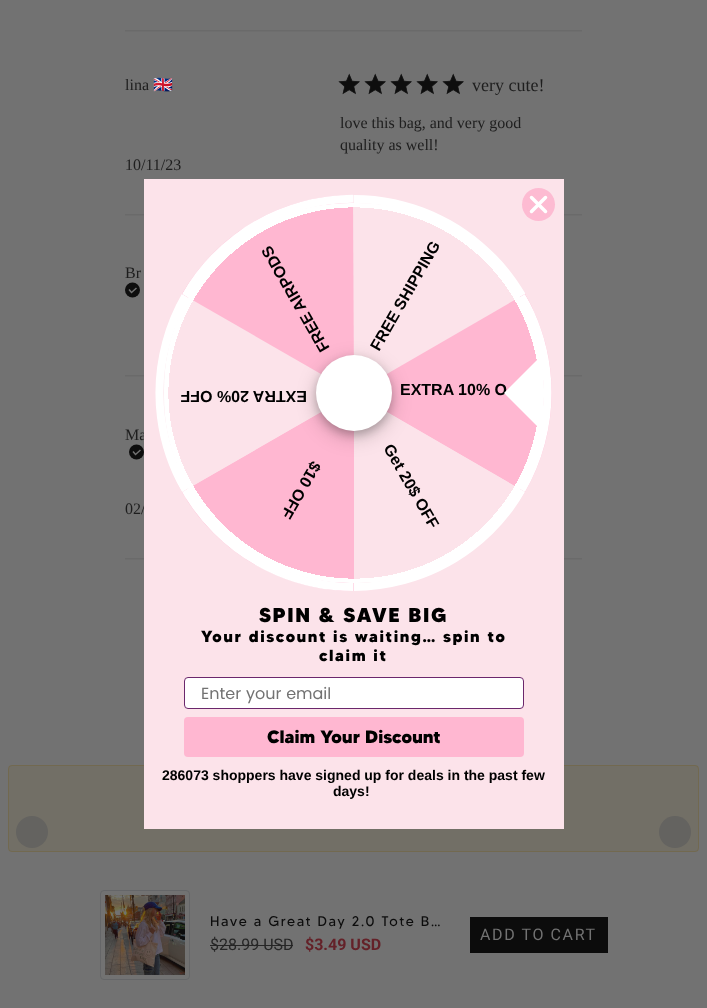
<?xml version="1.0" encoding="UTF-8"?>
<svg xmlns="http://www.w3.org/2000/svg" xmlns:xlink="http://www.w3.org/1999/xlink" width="707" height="1008">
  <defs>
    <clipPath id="clip1"><path d="M 353.5 393 l 171.5 -99 l 99 171.5 l -99 26.5 z" /></clipPath>
    <clipPath id="clip2"><path d="M 353.5 393 l 171.5 99 l -99 171.5 l -72.5 -72.5 z" /></clipPath>
    <clipPath id="clip3"><path d="M 353.5 393 v 198 h -198 l 26.5 -99 z" /></clipPath>
    <clipPath id="clip4"><path d="M 353.5 393 l -171.5 99 l -99 -171.5 l 99 -26.5 z" /></clipPath>
    <clipPath id="clip5"><path d="M 353.5 393 l -171.5 -99 l 99 -171.5 l 72.5 72.5 z" /></clipPath>
    <radialGradient id="g1" gradientUnits="userSpaceOnUse" cx="354" cy="393" r="269"><stop offset="0.69" stop-color="#ffffff" stop-opacity="0" /><stop offset="0.69" stop-color="#ffffff" /></radialGradient>
  </defs>
  <rect width="100%" height="100%" fill="#727272" />
  <image x="125" y="30" width="457" height="2" xlink:href="image1.png" />
  <image x="338" y="73" width="22" height="22" xlink:href="image2.png" />
  <image x="364" y="73" width="22" height="22" xlink:href="image2.png" />
  <image x="390" y="73" width="22" height="22" xlink:href="image2.png" />
  <image x="416" y="73" width="22" height="22" xlink:href="image2.png" />
  <image x="442" y="73" width="22" height="22" xlink:href="image2.png" />
  <image x="125" y="214" width="457" height="2" xlink:href="image1.png" />
  <circle cx="132.5" cy="290" r="7.5" fill="#0e0e0e" />
  <path d="M 129 289.5 l 2.5 3 l 5 -4.5" fill="none" stroke="#727272" stroke-width="1.5" />
  <image x="125" y="375" width="457" height="2" xlink:href="image1.png" />
  <circle cx="136.5" cy="452" r="7.5" fill="#0e0e0e" />
  <path d="M 133 451.5 l 2.5 3 l 5 -4.5" fill="none" stroke="#727272" stroke-width="1.5" />
  <image x="125" y="558" width="457" height="2" xlink:href="image1.png" />
  <rect x="8" y="765" width="691" height="87" rx="4" fill="#726f66" />
  <rect x="8.5" y="765.5" width="690" height="86" rx="3.5" fill="none" stroke="#72590f" stroke-opacity="0.25" />
  <circle cx="32" cy="832" r="16" fill="#646360" />
  <path d="M 675 848 c -9 0 -16 -7 -16 -16 c 0 -8.5 7 -16 16 -16 c 9 0 16 7.5 16 16 c 0 9 -7 16 -16 16 z" fill="#646360" />
  <rect x="100.5" y="890.5" width="89" height="89" rx="3.5" fill="none" stroke="#656668" />
  <image x="105" y="895" width="80" height="80" xlink:href="image3.png" />
  <rect x="210" y="945" width="83" height="1" fill="#262626" />
  <rect x="470" y="917" width="138" height="36" fill="#0c0c0c" />
  <text x="125" y="90" style="font-family: Liberation Serif; font-size: 16px; fill: #1e1e1e">lina</text>
  <text x="153" y="90" style="font-family: Noto Color Emoji; font-size: 16px; fill: #1e1e1e">🇬🇧</text>
  <text x="472" y="91" style="font-family: Liberation Serif; font-size: 18px; fill: #1e1e1e">very cute!</text>
  <text x="340" y="128" style="font-family: Liberation Serif; font-size: 16px; fill: #1e1e1e">love this bag, and very good</text>
  <text x="340" y="150" style="font-family: Liberation Serif; font-size: 16px; fill: #1e1e1e">quality as well!</text>
  <text x="125" y="170" style="font-family: Liberation Serif; font-size: 16px; fill: #1e1e1e">10/11/23</text>
  <text x="125" y="278" style="font-family: Liberation Serif; font-size: 16px; fill: #1e1e1e">Br</text>
  <text x="125" y="440" style="font-family: Liberation Serif; font-size: 16px; fill: #1e1e1e">Ma</text>
  <text x="125" y="514" style="font-family: Liberation Serif; font-size: 16px; fill: #1e1e1e">02/</text>
  <text x="210" y="926" style="font-family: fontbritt; font-size: 14px; letter-spacing: 1.6px; fill: #0c0c0c">Have a Great Day 2.0 Tote B…</text>
  <text x="210" y="950" style="font-family: Roboto; font-size: 16px; fill: #262626">$28.99 USD</text>
  <text x="305" y="950" style="font-family: Roboto; font-size: 16px; font-weight: bold; fill: #642128">$3.49 USD</text>
  <text x="480" y="940" style="font-family: Roboto; font-size: 16px; letter-spacing: 1.6px; fill: #727272">ADD TO CART</text>
  <rect x="144" y="179" width="420" height="650" fill="#fce3ea" />
  <path d="M 354 195 v 8 c 67 0 131 36 164 95 l 7 -4 v -1 c -34 -58 -98 -98 -171 -98 z" fill="#ffffff" />
  <text x="379" y="352" transform="rotate(-60 379 352)" style="font-family: Liberation Sans; font-size: 16px; font-weight: bold; fill: #000000">FREE SHIPPING</text>
  <path d="M 525 294 l -171 99 l 171 99 c 34 -59 37 -134 0 -198 z" fill="#ffb7d1" />
  <g clip-path="url(#clip1)">
    <path d="M 521.5 296 c 53.5 92.5 22 211 -71 265 c -93 53.5 -211.5 21.5 -265 -71 c -53.5 -93 -22 -211.5 71 -265 c 93 -54 211.5 -22 265 71 z" fill="none" stroke="#ffffff" stroke-width="8" />
  </g>
  <text x="400" y="395" style="font-family: Liberation Sans; font-size: 16px; font-weight: bold; fill: #000000">EXTRA 10% O</text>
  <path d="M 354 393 l 171 99 c -35 61 -101 99 -171 99 h -1 z" fill="#fce3ea" />
  <g clip-path="url(#clip2)">
    <path d="M 521.5 490 c -53.5 92.5 -172 124.5 -265 71 c -93 -54 -124.5 -172.5 -71 -265 c 53.5 -93 172 -125 265 -71 c 93 53.5 124.5 172 71 265 z" fill="none" stroke="#ffffff" stroke-width="8" />
  </g>
  <path d="M 354 393 v 198 c -71 0 -137 -38 -172 -99 z" fill="#ffb7d1" />
  <g clip-path="url(#clip3)">
    <path d="M 353.5 587 c -107 0 -194 -87 -194 -194 c 0 -107.5 87 -194 194 -194 c 107 0 194 86.5 194 194 c 0 107 -87 194 -194 194 z" fill="none" stroke="#ffffff" stroke-width="8" />
  </g>
  <text x="312" y="460" transform="rotate(120 312 460)" style="font-family: Liberation Sans; font-size: 16px; font-weight: bold; fill: #000000">$10 OFF</text>
  <path d="M 354 393 l -172 99 c -35 -61 -35 -137 0 -198 z" fill="#fce3ea" />
  <g clip-path="url(#clip4)">
    <path d="M 185.5 490 c -53.5 -93 -22 -211.5 71 -265 c 93 -54 211.5 -22 265 71 c 53.5 92.5 22 211 -71 265 c -93 53.5 -211.5 21.5 -265 -71 z" fill="none" stroke="#ffffff" stroke-width="8" />
  </g>
  <text x="307" y="391" transform="rotate(180 307 391)" style="font-family: Liberation Sans; font-size: 16px; font-weight: bold; fill: #000000">EXTRA 20% OFF</text>
  <path d="M 354 393 l -1 -198 c -68 0 -134 35 -171 99 z" fill="#ffb7d1" />
  <g clip-path="url(#clip5)">
    <path d="M 185.5 296 c 53.5 -93 172 -125 265 -71 c 93 53.5 124.5 172 71 265 c -53.5 92.5 -172 124.5 -265 71 c -93 -54 -124.5 -172.5 -71 -265 z" fill="none" stroke="#ffffff" stroke-width="8" />
  </g>
  <text x="330" y="348" transform="rotate(-120 330 348)" style="font-family: Liberation Sans; font-size: 16px; font-weight: bold; fill: #000000">FREE AIRPODS</text>
  <text x="383" y="448" transform="rotate(60 383 448)" style="font-family: Liberation Sans; font-size: 16px; font-weight: bold; fill: #000000">Get 20$ OFF</text>
  <rect x="316" y="361" width="76" height="76" rx="38" fill="#000000" fill-opacity="0.2" filter="blur(10px)" />
  <rect x="316" y="359" width="76" height="76" rx="38" fill="#000000" fill-opacity="0.2" filter="blur(4px)" />
  <circle cx="354" cy="393" r="38" fill="#ffffff" />
  <path d="M 542 366 c 0 -3 -2 -5 -4 -7 l -34 34 l 34 34 c 2 -2 4 -4 4 -7 z" fill="#ffffff" />
  <rect x="164" y="203" width="380" height="380" rx="186" fill="url(#g1)" />
  <circle cx="538.5" cy="204.5" r="16.5" fill="#fdbbd2" />
  <path d="M 531.5 197.5 l 14 14 m -14 0 l 14 -14 z" fill="none" stroke="#ffffff" stroke-width="3.5" stroke-linecap="round" stroke-linejoin="round" />
  <text x="259" y="622" style="font-family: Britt; font-size: 20px; font-weight: 800; letter-spacing: 1.6px; fill: #000000">SPIN &amp; SAVE BIG</text>
  <text x="201" y="642" style="font-family: Britt; font-size: 16px; font-weight: 800; letter-spacing: 1.6px; fill: #000000">Your discount is waiting… spin to</text>
  <text x="319" y="661" style="font-family: Britt; font-size: 16px; font-weight: 800; letter-spacing: 1.6px; fill: #000000">claim it</text>
  <rect x="184.5" y="677.5" width="339" height="31" rx="3.5" fill="#ffffff" stroke="#6b276c" />
  <text x="201" y="699" style="font-family: Poppins; font-size: 16px; fill: #727272">Enter your email</text>
  <rect x="184" y="717" width="340" height="40" rx="4" fill="#ffb7d1" />
  <text x="267" y="743" style="font-family: Britt; font-size: 18px; font-weight: 800; fill: #000000">Claim Your Discount</text>
  <text x="162" y="780" style="font-family: Liberation Sans; font-size: 14px; font-weight: bold; fill: #000000">286073 shoppers have signed up for deals in the past few</text>
  <text x="333" y="796" style="font-family: Liberation Sans; font-size: 14px; font-weight: bold; fill: #000000">days!</text>
</svg>
